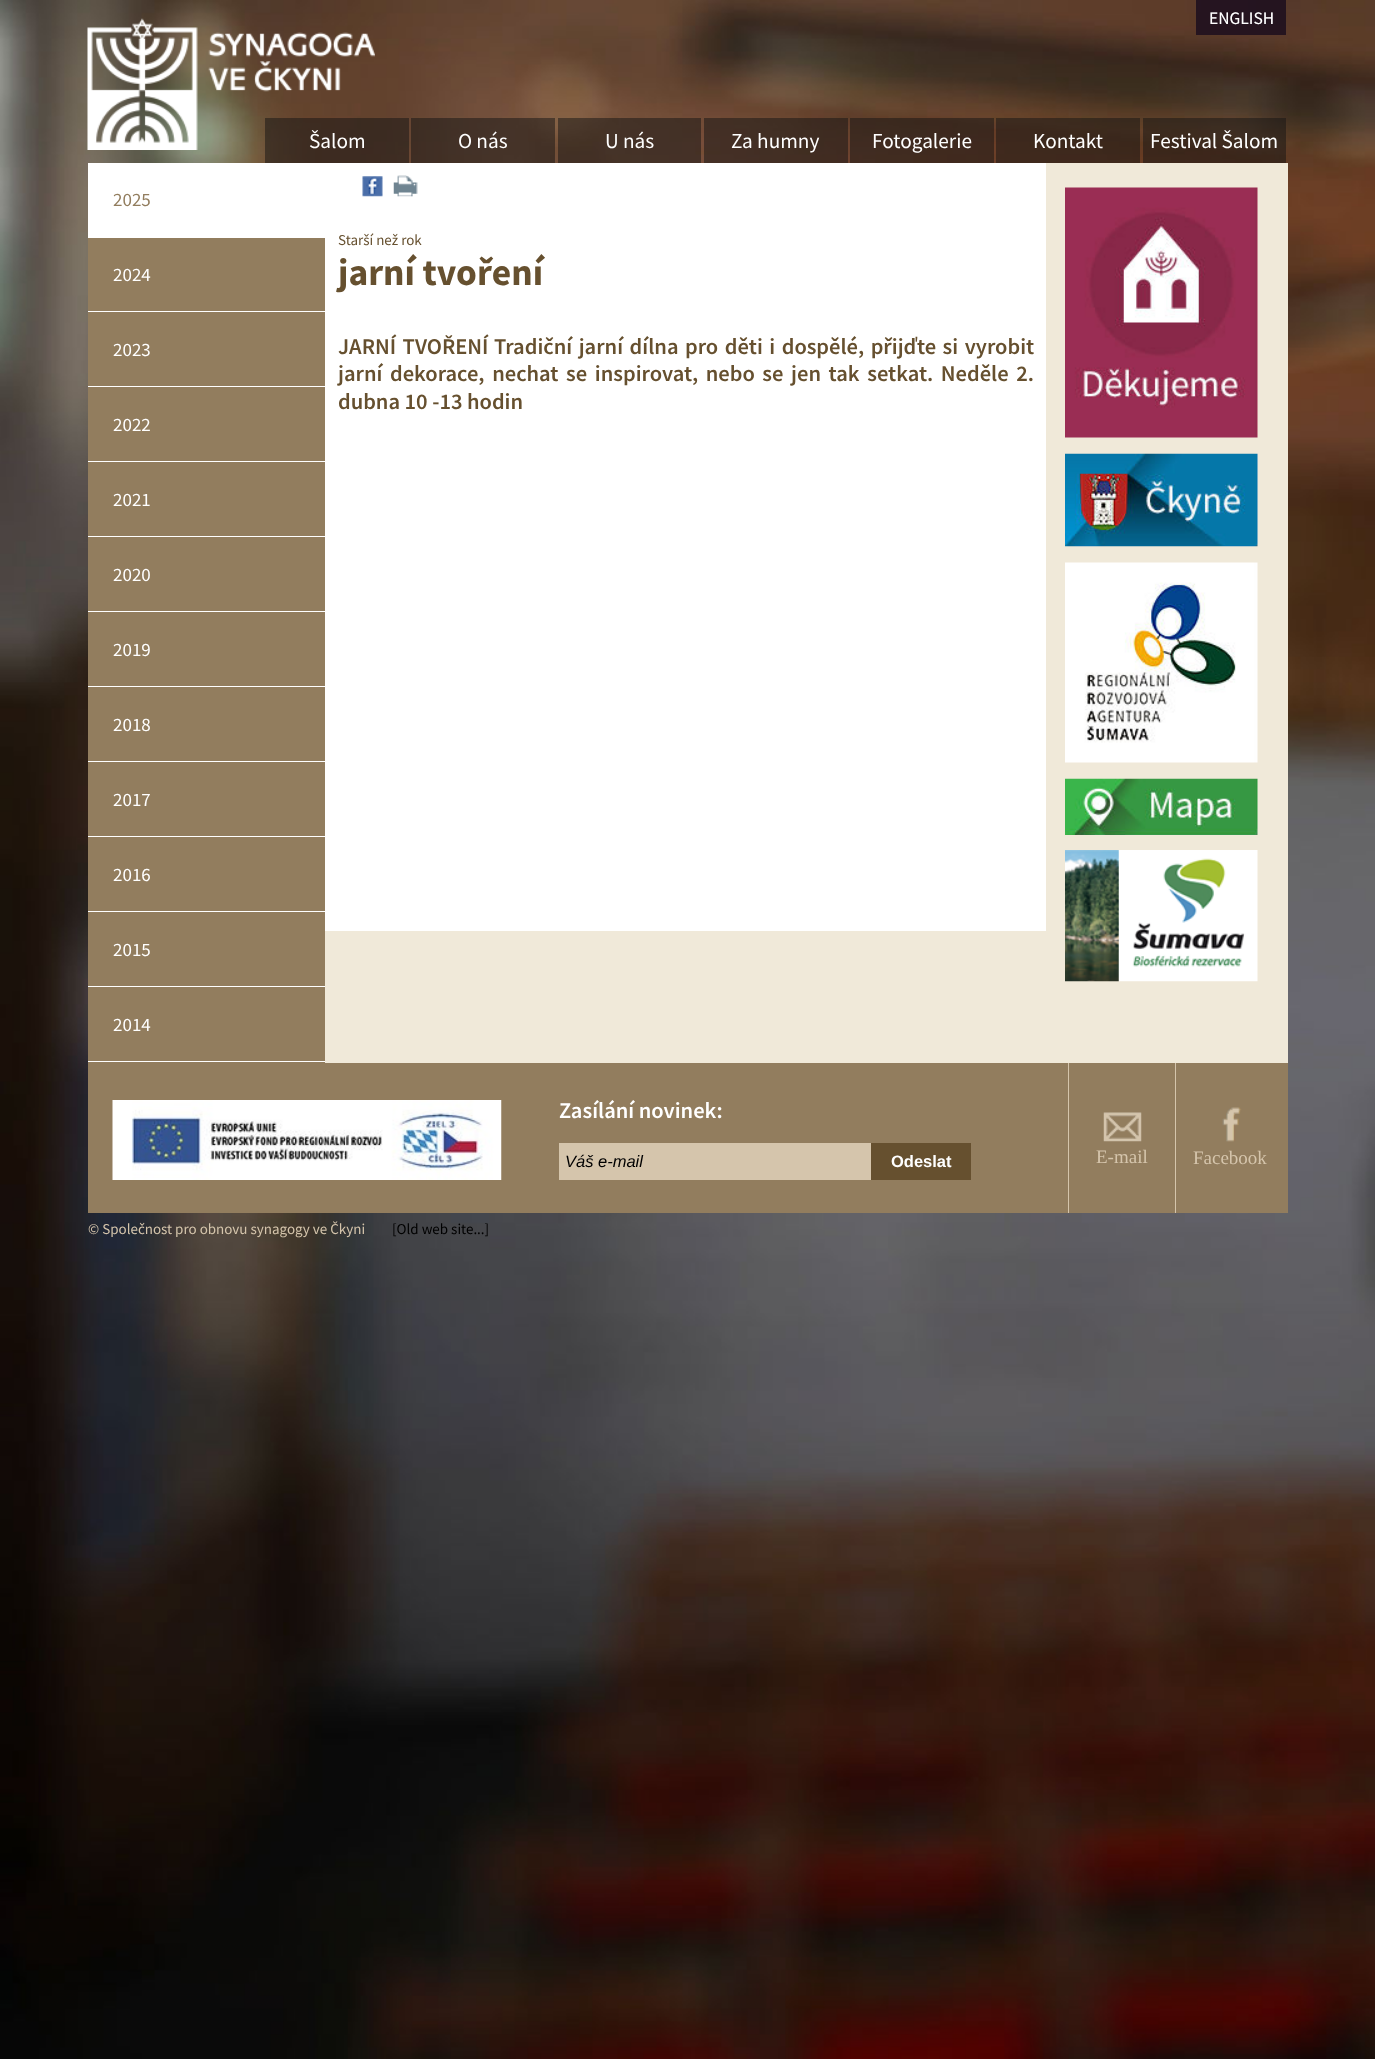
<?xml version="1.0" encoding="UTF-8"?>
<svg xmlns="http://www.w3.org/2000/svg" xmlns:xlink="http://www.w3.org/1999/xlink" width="1375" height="2059">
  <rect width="100%" height="100%" fill="#ffffff" />
  <image x="0" y="0" width="1375" height="2059" xlink:href="image1.png" />
  <rect x="1196" width="90" height="35" fill="#180b1d" fill-opacity="0.55" />
  <rect x="265" y="118" width="144" height="45" fill="#141414" fill-opacity="0.5" />
  <rect x="411" y="118" width="144" height="45" fill="#141414" fill-opacity="0.5" />
  <rect x="558" y="118" width="143" height="45" fill="#141414" fill-opacity="0.5" />
  <rect x="704" y="118" width="144" height="45" fill="#141414" fill-opacity="0.5" />
  <rect x="850" y="118" width="144" height="45" fill="#141414" fill-opacity="0.5" />
  <rect x="996" y="118" width="144" height="45" fill="#141414" fill-opacity="0.5" />
  <rect x="1143" y="118" width="143" height="45" fill="#141414" fill-opacity="0.5" />
  <rect x="325" y="163" width="963" height="900" fill="#f0e9d9" />
  <rect x="88" y="163" width="237" height="75" fill="#ffffff" />
  <rect x="88" y="238" width="237" height="825" fill="#927d5e" />
  <rect x="88" y="311" width="237" height="1" fill="#ffffff" />
  <rect x="88" y="386" width="237" height="1" fill="#ffffff" />
  <rect x="88" y="461" width="237" height="1" fill="#ffffff" />
  <rect x="88" y="536" width="237" height="1" fill="#ffffff" />
  <rect x="88" y="611" width="237" height="1" fill="#ffffff" />
  <rect x="88" y="686" width="237" height="1" fill="#ffffff" />
  <rect x="88" y="761" width="237" height="1" fill="#ffffff" />
  <rect x="88" y="836" width="237" height="1" fill="#ffffff" />
  <rect x="88" y="911" width="237" height="1" fill="#ffffff" />
  <rect x="88" y="986" width="237" height="1" fill="#ffffff" />
  <rect x="88" y="1061" width="237" height="1" fill="#ffffff" />
  <rect x="325" y="163" width="721" height="768" fill="#ffffff" />
  <image x="362" y="176" width="21" height="21" xlink:href="image3.png" />
  <image x="393" y="175" width="25" height="22" xlink:href="image4.png" />
  <image x="1065" y="187" width="193" height="251" xlink:href="image5.png" />
  <image x="1065" y="453" width="193" height="94" xlink:href="image6.png" />
  <image x="1065" y="562" width="193" height="201" xlink:href="image7.png" />
  <image x="1065" y="778" width="193" height="57" xlink:href="image8.png" />
  <image x="1065" y="850" width="193" height="132" xlink:href="image9.png" />
  <rect x="88" y="1063" width="1200" height="150" fill="#927d5e" />
  <image x="112" y="1100" width="390" height="80" xlink:href="image10.png" />
  <rect x="559" y="1143" width="312" height="37" fill="#d5c5ac" />
  <rect x="871" y="1143" width="100" height="37" fill="#66502f" />
  <rect x="1068" y="1063" width="1" height="150" fill="#d5c5ac" />
  <image x="1103" y="1112" width="39" height="30" xlink:href="image11.png" />
  <rect x="1175" y="1063" width="1" height="150" fill="#d5c5ac" />
  <image x="1222" y="1107" width="20" height="35" xlink:href="image12.png" />
  <text x="1209" y="24" style="font-family: Source Sans Pro; font-size: 17.5px; fill: #ffffff">ENGLISH</text>
  <rect x="1196" width="90" height="35" fill="#180b1d" fill-opacity="0.55" />
  <text x="1209" y="24" style="font-family: Source Sans Pro; font-size: 17.5px; fill: #ffffff">ENGLISH</text>
  <text x="309" y="148" style="font-family: Source Sans Pro; font-size: 21.25px; fill: #ffffff">Šalom</text>
  <image x="87" y="18" width="288" height="132" xlink:href="image2.png" />
  <text x="458" y="148" style="font-family: Source Sans Pro; font-size: 21.25px; fill: #ffffff">O nás</text>
  <text x="605" y="148" style="font-family: Source Sans Pro; font-size: 21.25px; fill: #ffffff">U nás</text>
  <text x="731" y="148" style="font-family: Source Sans Pro; font-size: 21.25px; fill: #ffffff">Za humny</text>
  <text x="872" y="148" style="font-family: Source Sans Pro; font-size: 21.25px; fill: #ffffff">Fotogalerie</text>
  <text x="1033" y="148" style="font-family: Source Sans Pro; font-size: 21.25px; fill: #ffffff">Kontakt</text>
  <text x="1150" y="148" style="font-family: Source Sans Pro; font-size: 21.25px; fill: #ffffff">Festival Šalom</text>
  <text x="113" y="206" style="font-family: Source Sans Pro; font-size: 19px; fill: #927d5e">2025</text>
  <text x="113" y="281" style="font-family: Source Sans Pro; font-size: 19px; fill: #ffffff">2024</text>
  <text x="113" y="356" style="font-family: Source Sans Pro; font-size: 19px; fill: #ffffff">2023</text>
  <text x="113" y="431" style="font-family: Source Sans Pro; font-size: 19px; fill: #ffffff">2022</text>
  <text x="113" y="506" style="font-family: Source Sans Pro; font-size: 19px; fill: #ffffff">2021</text>
  <text x="113" y="581" style="font-family: Source Sans Pro; font-size: 19px; fill: #ffffff">2020</text>
  <text x="113" y="656" style="font-family: Source Sans Pro; font-size: 19px; fill: #ffffff">2019</text>
  <text x="113" y="731" style="font-family: Source Sans Pro; font-size: 19px; fill: #ffffff">2018</text>
  <text x="113" y="806" style="font-family: Source Sans Pro; font-size: 19px; fill: #ffffff">2017</text>
  <text x="113" y="881" style="font-family: Source Sans Pro; font-size: 19px; fill: #ffffff">2016</text>
  <text x="113" y="956" style="font-family: Source Sans Pro; font-size: 19px; fill: #ffffff">2015</text>
  <text x="113" y="1031" style="font-family: Source Sans Pro; font-size: 19px; fill: #ffffff">2014</text>
  <text x="338" y="245" style="font-family: Source Sans Pro; font-size: 15px; fill: #66502f">Starší než rok</text>
  <text x="338" y="285" style="font-family: Source Sans Pro; font-size: 37.5px; font-weight: bold; fill: #66502f">jarní tvoření</text>
  <text x="338" y="354" word-spacing="2" style="font-family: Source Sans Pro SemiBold; font-size: 22.5px; font-weight: 600; fill: #66502f">JARNÍ TVOŘENÍ</text>
  <text x="494" y="354" word-spacing="2" style="font-family: Source Sans Pro SemiBold; font-size: 22.5px; font-weight: 600; fill: #66502f">Tradiční jarní dílna pro děti i dospělé, přijďte si vyrobit</text>
  <text x="338" y="381" word-spacing="3.1" style="font-family: Source Sans Pro SemiBold; font-size: 22.5px; font-weight: 600; fill: #66502f">jarní dekorace, nechat se inspirovat, nebo se jen tak setkat. Neděle 2.</text>
  <text x="338" y="409" style="font-family: Source Sans Pro SemiBold; font-size: 22.5px; font-weight: 600; fill: #66502f">dubna 10 -13 hodin</text>
  <text x="559" y="1118" style="font-family: Source Sans Pro SemiBold; font-size: 22.5px; font-weight: 600; fill: #ffffff">Zasílání novinek:</text>
  <text x="565" y="1167" style="font-family: Liberation Sans; font-size: 16.5px; font-style: italic; fill: #000000">Váš e-mail</text>
  <text x="891" y="1167" style="font-family: Liberation Sans; font-size: 16.5px; font-weight: bold; fill: #ffffff">Odeslat</text>
  <text x="1096" y="1163" style="font-family: Liberation Serif; font-size: 19px; fill: #d5c5ac">E-mail</text>
  <text x="1193" y="1164" style="font-family: Liberation Serif; font-size: 19px; fill: #d5c5ac">Facebook</text>
  <text x="88" y="1234" style="font-family: Source Sans Pro; font-size: 15px; fill: #d5c5ac">© Společnost pro obnovu synagogy ve Čkyni</text>
  <text x="392" y="1234" style="font-family: Source Sans Pro; font-size: 15px; fill: #000000">[Old web site...]</text>
</svg>
